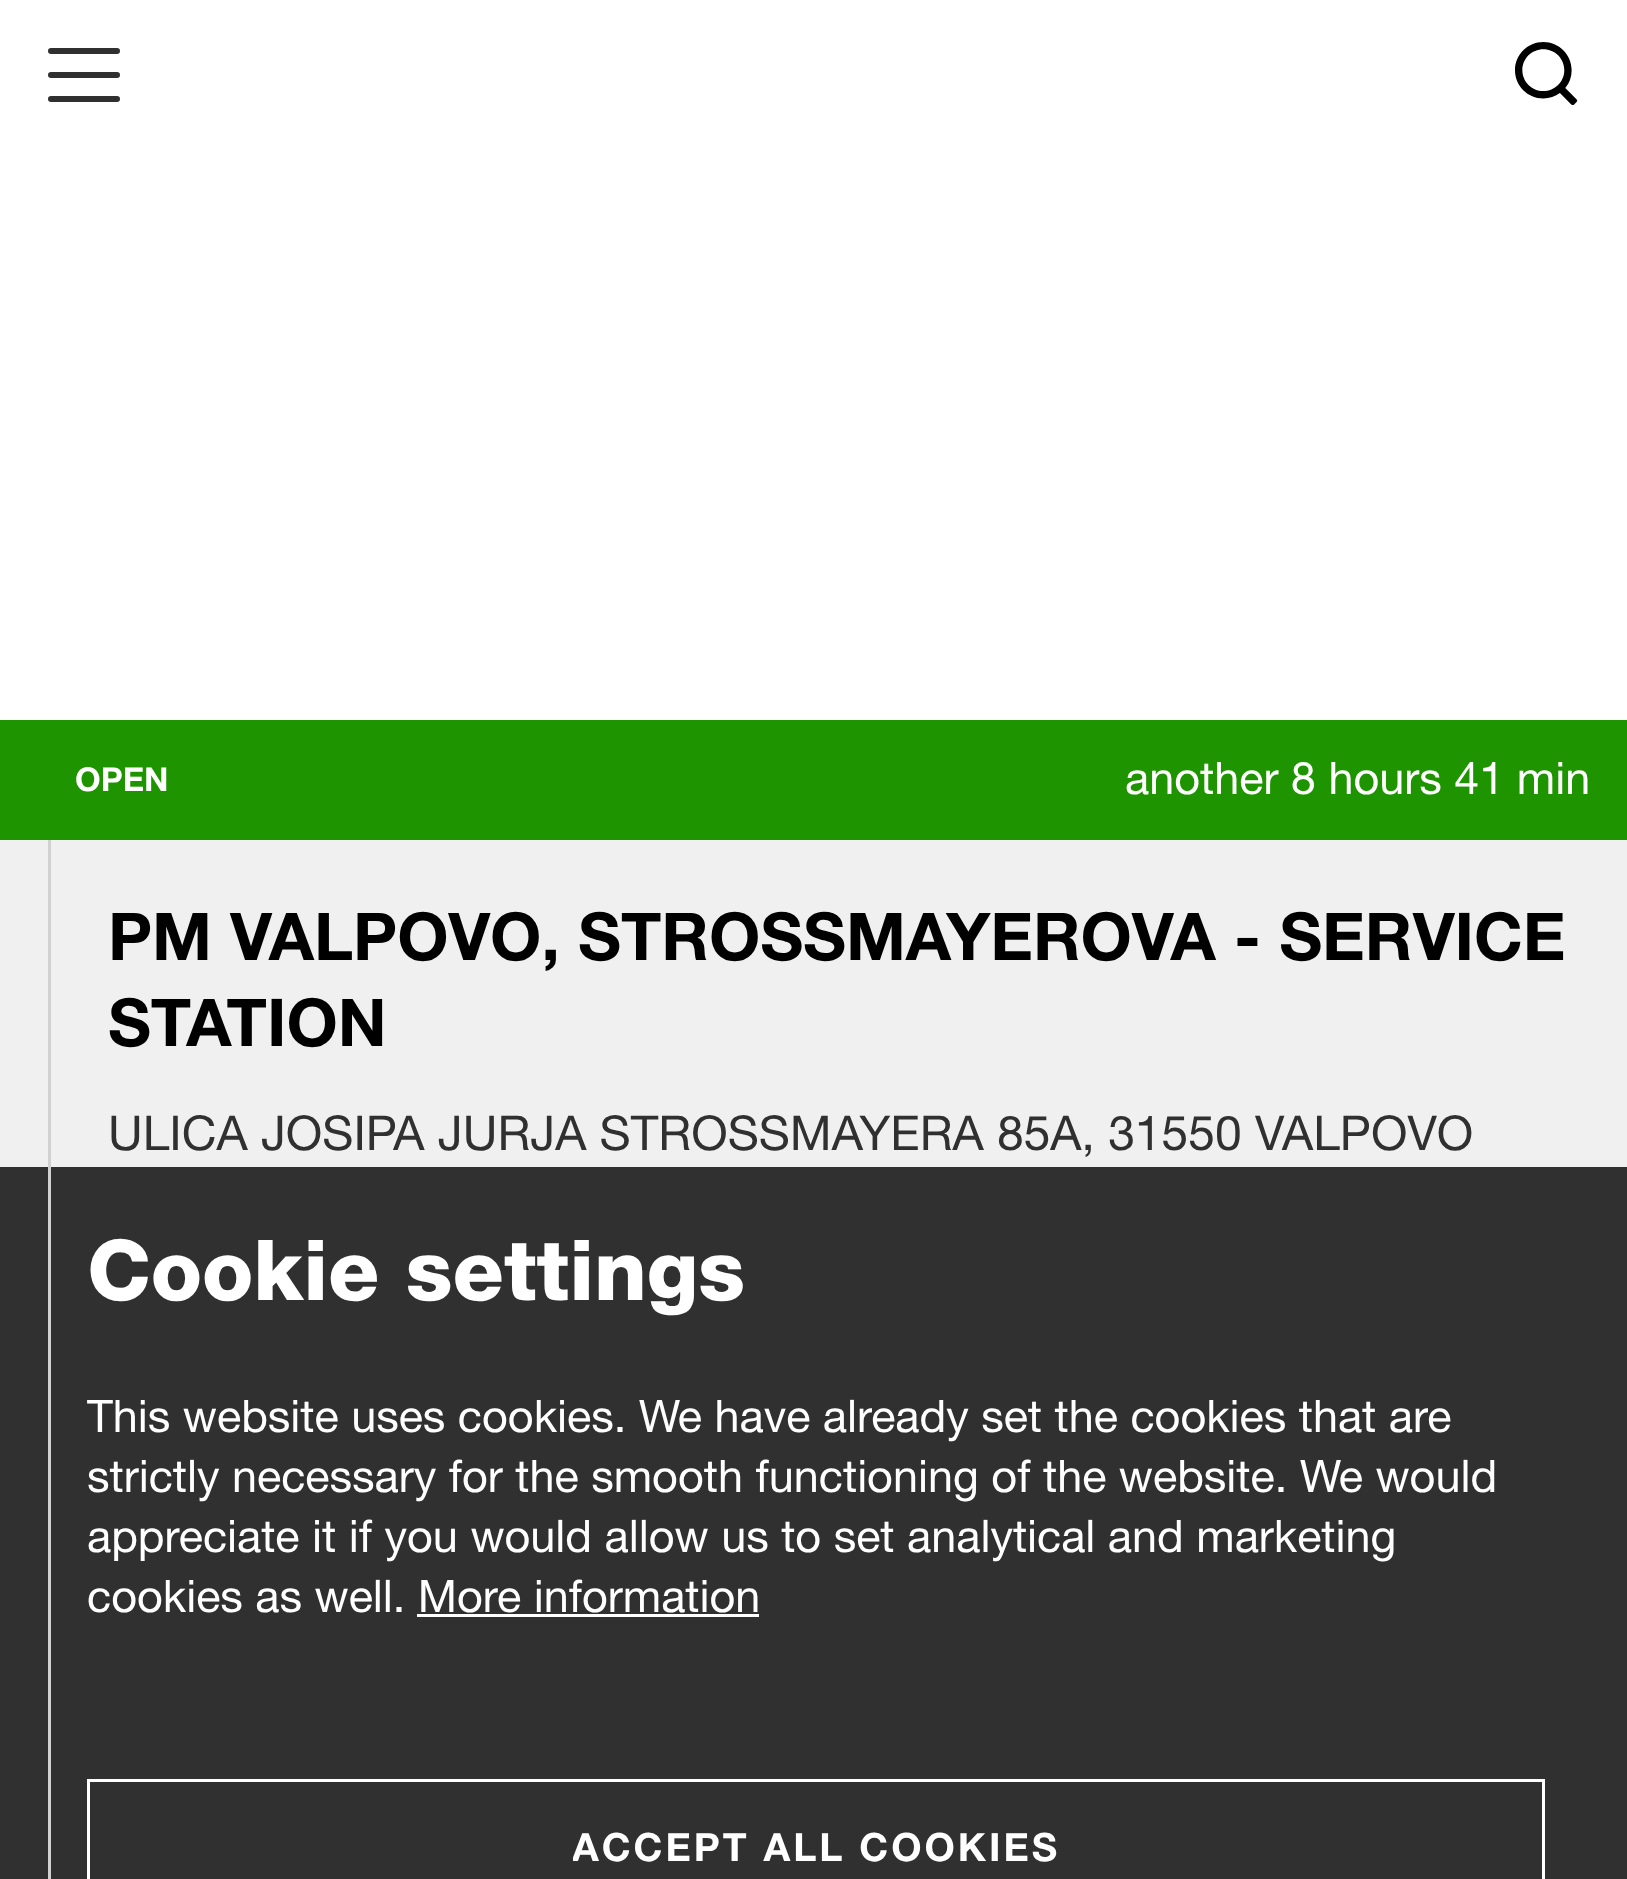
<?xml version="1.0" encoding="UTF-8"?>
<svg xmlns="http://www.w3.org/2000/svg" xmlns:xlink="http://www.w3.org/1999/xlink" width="1627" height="1879">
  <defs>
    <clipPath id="clip1"><rect x="573" y="1824" width="486" height="54" /></clipPath>
  </defs>
  <rect width="100%" height="100%" fill="#ffffff" />
  <rect x="48" y="48" width="72" height="6" rx="3" fill="#303030" />
  <rect x="48" y="72" width="72" height="6" rx="3" fill="#303030" />
  <rect x="48" y="96" width="72" height="6" rx="3" fill="#303030" />
  <image x="1515" y="42" width="63" height="63" xlink:href="image1.png" />
  <rect y="840" width="1627" height="327" fill="#f0f0f0" />
  <rect x="48" y="840" width="3" height="327" fill="#d1d1d1" />
  <rect y="720" width="1627" height="120" fill="#1e9500" />
  <rect y="1167" width="1627" height="712" fill="#303030" />
  <rect x="48" y="1167" width="3" height="712" fill="#d1d1d1" />
  <rect x="417" y="1614" width="342" height="3" fill="#ffffff" />
  <rect x="88.5" y="1780.5" width="1455" height="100" fill="none" stroke="#ffffff" stroke-width="3" />
  <text x="75" y="791" style="font-family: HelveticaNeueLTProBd; font-size: 33px; fill: #ffffff">OPEN</text>
  <text x="1125" y="794" style="font-family: helvetica neue; font-size: 45px; fill: #ffffff">another 8 hours 41 min</text>
  <text x="108" y="960" style="font-family: HelveticaNeueLTProBd; font-size: 66px; fill: #000000">PM VALPOVO, STROSSMAYEROVA - SERVICE</text>
  <text x="108" y="1046" style="font-family: HelveticaNeueLTProBd; font-size: 66px; fill: #000000">STATION</text>
  <text x="108" y="1150" style="font-family: helvetica neue; font-size: 48px; fill: #303030">ULICA JOSIPA JURJA STROSSMAYERA 85A, 31550 VALPOVO</text>
  <text x="87" y="1300" style="font-family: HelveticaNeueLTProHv; font-size: 84px; fill: #ffffff">Cookie settings</text>
  <text x="87" y="1432" style="font-family: helvetica neue; font-size: 45px; fill: #ffffff">This website uses cookies. We have already set the cookies that are</text>
  <text x="87" y="1492" style="font-family: helvetica neue; font-size: 45px; fill: #ffffff">strictly necessary for the smooth functioning of the website. We would</text>
  <text x="87" y="1552" style="font-family: helvetica neue; font-size: 45px; fill: #ffffff">appreciate it if you would allow us to set analytical and marketing</text>
  <text x="87" y="1612" style="font-family: helvetica neue; font-size: 45px; fill: #ffffff">cookies as well. More information</text>
  <g clip-path="url(#clip1)">
    <text x="572" y="1861" style="font-family: HelveticaNeueLTProBd; font-size: 39px; letter-spacing: 3px; fill: #ffffff">ACCEPT ALL COOKIES</text>
  </g>
</svg>
